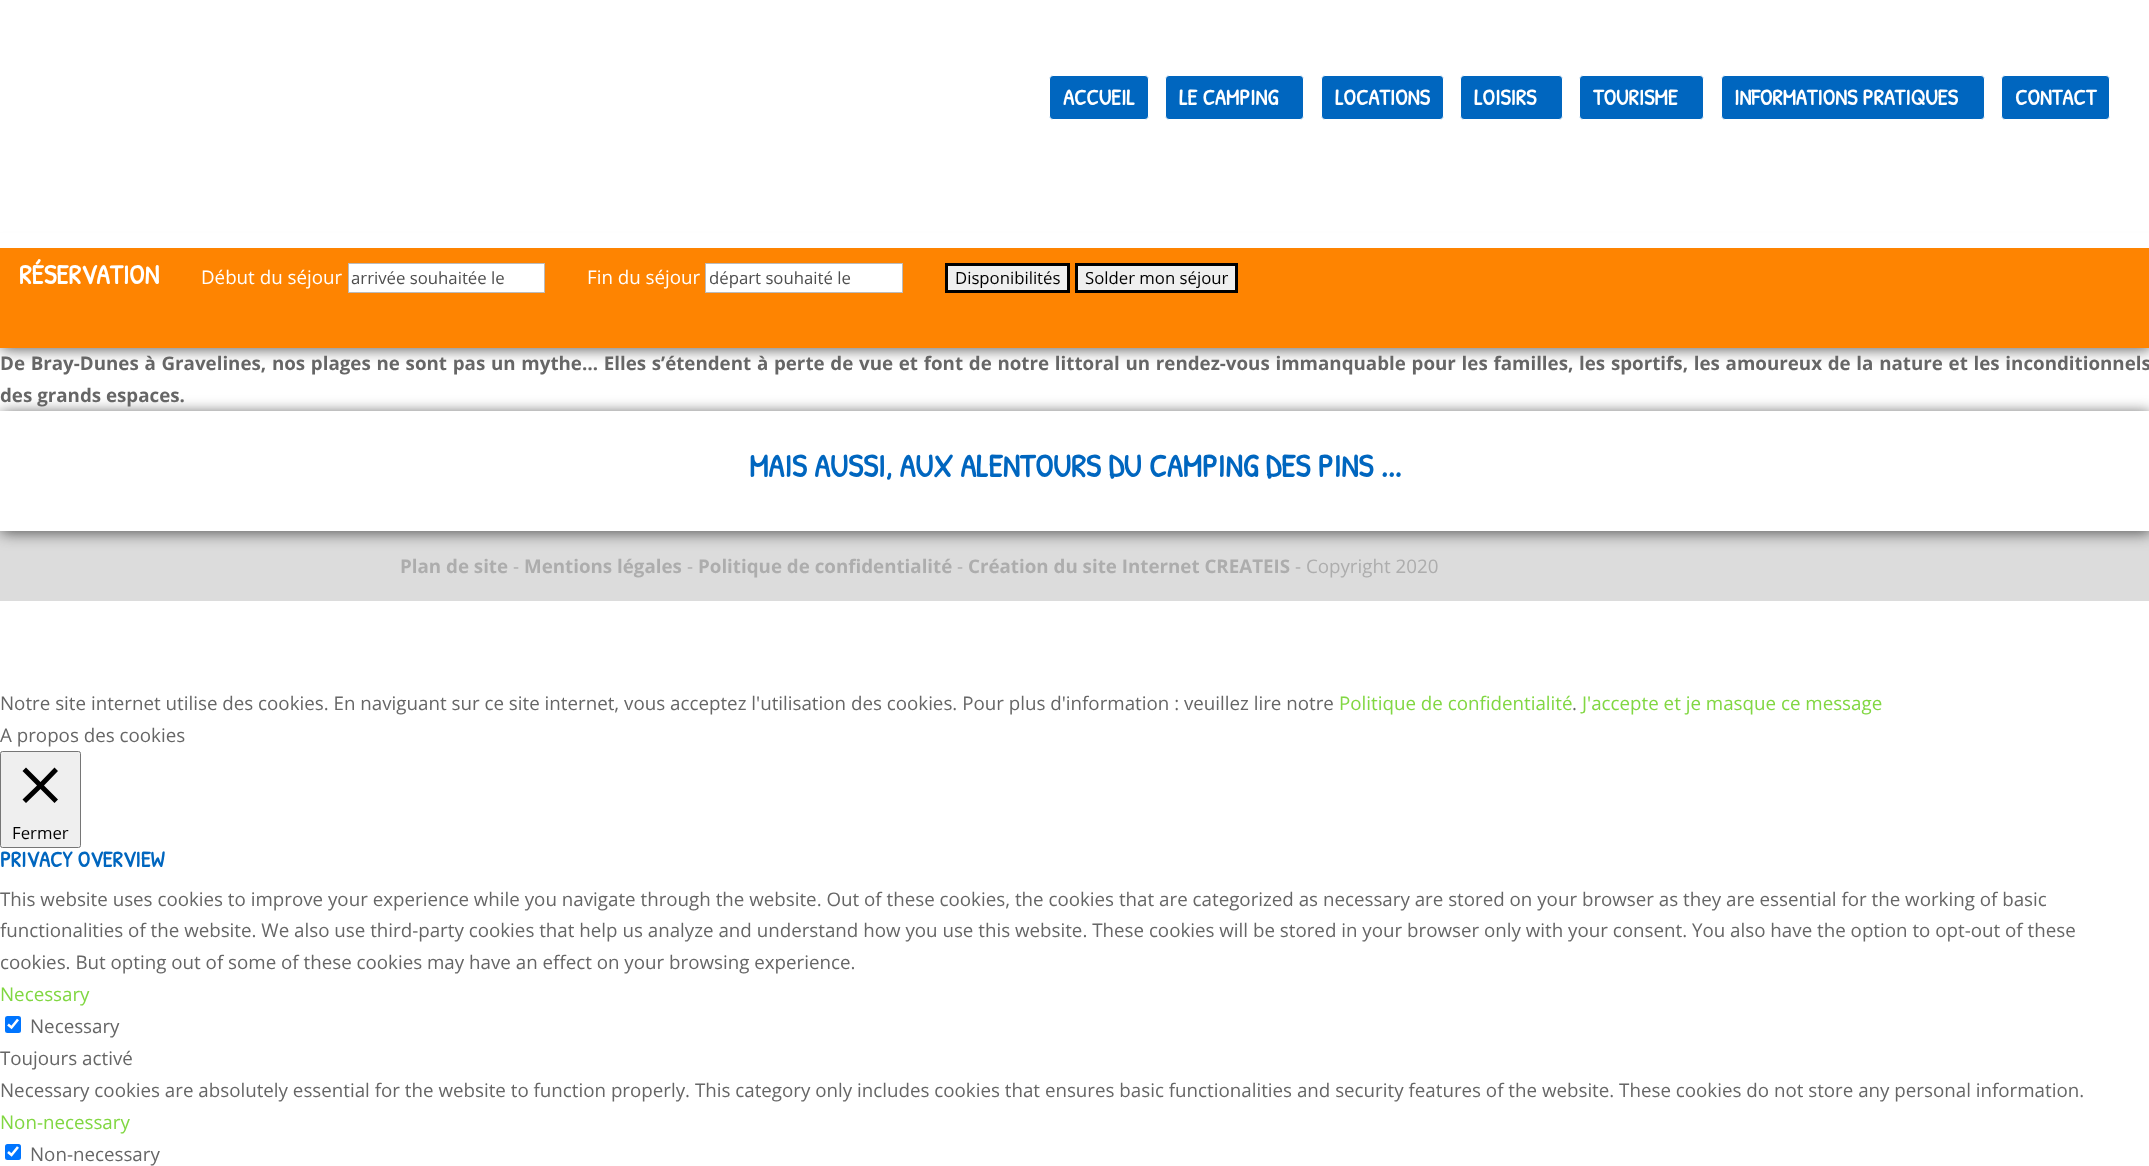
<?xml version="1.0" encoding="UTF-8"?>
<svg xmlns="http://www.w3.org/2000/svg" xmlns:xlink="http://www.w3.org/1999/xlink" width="2149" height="1166">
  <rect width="100%" height="100%" fill="#ffffff" />
  <rect x="1049.5" y="75.5" width="99" height="44" rx="3.5" fill="#0066bf" stroke="#ffffff" />
  <rect x="1165.5" y="75.5" width="138" height="44" rx="3.5" fill="#0066bf" stroke="#ffffff" />
  <rect x="1321.5" y="75.5" width="122" height="44" rx="3.5" fill="#0066bf" stroke="#ffffff" />
  <rect x="1460.5" y="75.5" width="102" height="44" rx="3.5" fill="#0066bf" stroke="#ffffff" />
  <rect x="1579.5" y="75.5" width="124" height="44" rx="3.5" fill="#0066bf" stroke="#ffffff" />
  <rect x="1721.5" y="75.5" width="263" height="44" rx="3.5" fill="#0066bf" stroke="#ffffff" />
  <rect x="2001.5" y="75.5" width="108" height="44" rx="3.5" fill="#0066bf" stroke="#ffffff" />
  <rect x="1" y="249" width="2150" height="100" fill="#555555" filter="blur(7.5px)" />
  <rect y="233" width="2149" height="15" fill="#ffffff" />
  <rect y="248" width="2149" height="100" fill="#fe8401" />
  <rect x="348.5" y="263.5" width="196" height="29" fill="#ffffff" stroke="#bbbbbb" />
  <rect x="705.5" y="263.5" width="197" height="29" fill="#ffffff" stroke="#bbbbbb" />
  <rect x="946.5" y="264.5" width="122" height="27" fill="#efefef" stroke="#000000" stroke-width="3" />
  <rect x="1076.5" y="264.5" width="160" height="27" fill="#efefef" stroke="#000000" stroke-width="3" />
  <rect y="531" width="2149" height="70" fill="#dcdcdc" />
  <rect x="1" y="413" width="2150" height="120" fill="#555555" filter="blur(7.5px)" />
  <rect y="411" width="2149" height="120" fill="#ffffff" />
  <rect x="0.5" y="751.5" width="80" height="96" rx="2" fill="#efefef" stroke="#767676" />
  <path d="M 58 771 l -3.5 -3.5 l -14 14.5 l -14.5 -14.5 l -3.5 3.5 l 14.5 14.5 l -14.5 14 l 3.5 3.5 l 14.5 -14 l 14 14 l 3.5 -3.5 l -14 -14 z" fill="#000000" />
  <rect x="5" y="1016" width="16" height="17" rx="2.5" fill="#0075ff" />
  <path d="M 8 1024.5 l 3.5 3 l 6.5 -8" fill="none" stroke="#ffffff" stroke-width="2.6" />
  <rect x="5" y="1144" width="16" height="16" rx="2.5" fill="#0075ff" />
  <path d="M 8 1152 l 3.5 3 l 6.5 -8" fill="none" stroke="#ffffff" stroke-width="2.6" />
  <text x="1063" y="105" style="font-family: Patrick Hand; font-size: 22.5px; font-weight: bold; fill: #ffffff">ACCUEIL</text>
  <text x="1179" y="105" style="font-family: Patrick Hand; font-size: 22.5px; font-weight: bold; fill: #ffffff">LE CAMPING</text>
  <text x="1335" y="105" style="font-family: Patrick Hand; font-size: 22.5px; font-weight: bold; fill: #ffffff">LOCATIONS</text>
  <text x="1474" y="105" style="font-family: Patrick Hand; font-size: 22.5px; font-weight: bold; fill: #ffffff">LOISIRS</text>
  <text x="1593" y="105" style="font-family: Patrick Hand; font-size: 22.5px; font-weight: bold; fill: #ffffff">TOURISME</text>
  <text x="1734" y="105" style="font-family: Patrick Hand; font-size: 22.5px; font-weight: bold; fill: #ffffff">INFORMATIONS PRATIQUES</text>
  <text x="2015" y="105" style="font-family: Patrick Hand; font-size: 22.5px; font-weight: bold; fill: #ffffff">CONTACT</text>
  <text x="19" y="284" style="font-family: Patrick Hand; font-size: 27.5px; font-weight: bold; fill: #ffffff">RÉSERVATION</text>
  <text x="201" y="284" style="font-family: Open Sans; font-size: 18.75px; fill: #ffffff">Début du séjour</text>
  <text x="351" y="284" style="font-family: Open Sans; font-size: 16.75px; fill: #4e4e4e">arrivée souhaitée le</text>
  <text x="587" y="284" style="font-family: Open Sans; font-size: 18.75px; fill: #ffffff">Fin du séjour</text>
  <text x="709" y="284" style="font-family: Open Sans; font-size: 16.75px; fill: #4e4e4e">départ souhaité le</text>
  <text x="955" y="284" style="font-family: Open Sans; font-size: 16.75px; fill: #000000">Disponibilités</text>
  <text x="1085" y="284" style="font-family: Open Sans; font-size: 16.75px; fill: #000000">Solder mon séjour</text>
  <text x="0" y="370" word-spacing="0.85" style="font-family: Open Sans; font-size: 18.75px; font-weight: bold; fill: #666666">De Bray-Dunes à Gravelines, nos plages ne sont pas un mythe… Elles s’étendent à perte de vue et font de notre littoral un rendez-vous immanquable pour les familles, les sportifs, les amoureux de la nature et les inconditionnels</text>
  <text x="0" y="402" style="font-family: Open Sans; font-size: 18.75px; font-weight: bold; fill: #666666">des grands espaces.</text>
  <text x="749" y="477" style="font-family: Patrick Hand; font-size: 32.5px; font-weight: bold; fill: #0066bf">MAIS AUSSI, AUX ALENTOURS DU CAMPING DES PINS ...</text>
  <text x="400" y="573" style="font-family: Open Sans; font-size: 18.75px; font-weight: bold; fill: #adadad">Plan de site</text>
  <text x="513" y="573" style="font-family: Open Sans; font-size: 18.75px; fill: #adadad">-</text>
  <text x="524" y="573" style="font-family: Open Sans; font-size: 18.75px; font-weight: bold; fill: #adadad">Mentions légales</text>
  <text x="687" y="573" style="font-family: Open Sans; font-size: 18.75px; fill: #adadad">-</text>
  <text x="698" y="573" style="font-family: Open Sans; font-size: 18.75px; font-weight: bold; fill: #adadad">Politique de confidentialité</text>
  <text x="957" y="573" style="font-family: Open Sans; font-size: 18.75px; fill: #adadad">-</text>
  <text x="968" y="573" style="font-family: Open Sans; font-size: 18.75px; font-weight: bold; fill: #adadad">Création du site Internet CREATEIS</text>
  <text x="1295" y="573" style="font-family: Open Sans; font-size: 18.75px; fill: #adadad">- Copyright 2020</text>
  <text x="0" y="710" style="font-family: Open Sans; font-size: 18.75px; fill: #666666">Notre site internet utilise des cookies. En naviguant sur ce site internet, vous acceptez l'utilisation des cookies. Pour plus d'information : veuillez lire notre</text>
  <text x="1339" y="710" style="font-family: Open Sans; font-size: 18.75px; fill: #81d742">Politique de confidentialité</text>
  <text x="1572" y="710" style="font-family: Open Sans; font-size: 18.75px; fill: #666666">.</text>
  <text x="1582" y="710" style="font-family: Open Sans; font-size: 18.75px; fill: #81d742">J'accepte et je masque ce message</text>
  <text x="0" y="742" style="font-family: Open Sans; font-size: 18.75px; fill: #666666">A propos des cookies</text>
  <text x="12" y="839" style="font-family: Open Sans; font-size: 16.75px; fill: #000000">Fermer</text>
  <text x="0" y="867" style="font-family: Patrick Hand; font-size: 22.5px; font-weight: bold; fill: #0066bf">PRIVACY OVERVIEW</text>
  <text x="0" y="906" style="font-family: Open Sans; font-size: 18.75px; fill: #666666">This website uses cookies to improve your experience while you navigate through the website. Out of these cookies, the cookies that are categorized as necessary are stored on your browser as they are essential for the working of basic</text>
  <text x="0" y="937" style="font-family: Open Sans; font-size: 18.75px; fill: #666666">functionalities of the website. We also use third-party cookies that help us analyze and understand how you use this website. These cookies will be stored in your browser only with your consent. You also have the option to opt-out of these</text>
  <text x="0" y="969" style="font-family: Open Sans; font-size: 18.75px; fill: #666666">cookies. But opting out of some of these cookies may have an effect on your browsing experience.</text>
  <text x="0" y="1001" style="font-family: Open Sans; font-size: 18.75px; fill: #81d742">Necessary</text>
  <text x="30" y="1033" style="font-family: Open Sans; font-size: 18.75px; fill: #666666">Necessary</text>
  <text x="0" y="1065" style="font-family: Open Sans; font-size: 18.75px; fill: #666666">Toujours activé</text>
  <text x="0" y="1097" style="font-family: Open Sans; font-size: 18.75px; fill: #666666">Necessary cookies are absolutely essential for the website to function properly. This category only includes cookies that ensures basic functionalities and security features of the website. These cookies do not store any personal information.</text>
  <text x="0" y="1129" style="font-family: Open Sans; font-size: 18.75px; fill: #81d742">Non-necessary</text>
  <text x="30" y="1161" style="font-family: Open Sans; font-size: 18.75px; fill: #666666">Non-necessary</text>
</svg>
